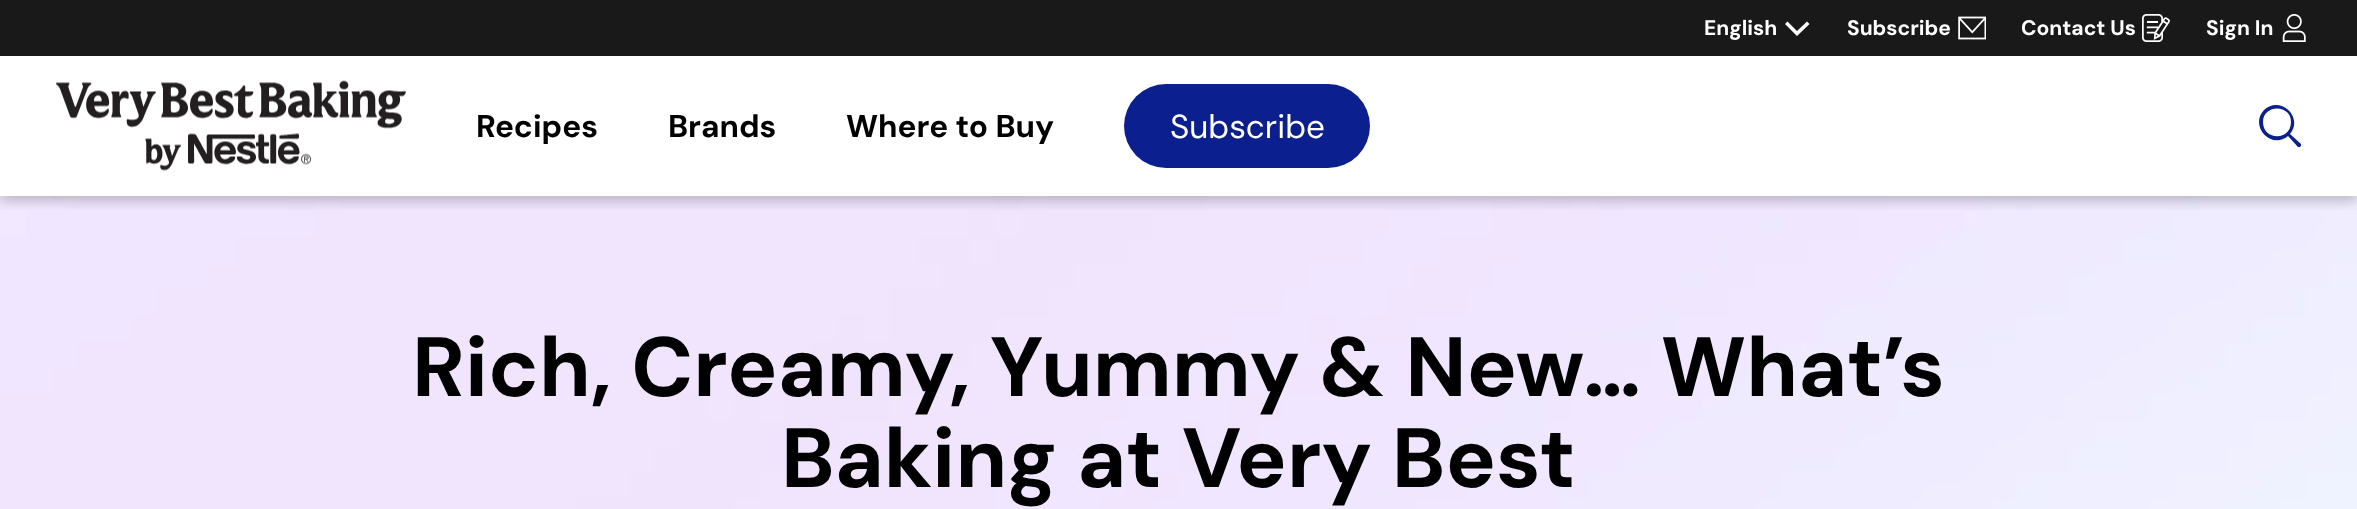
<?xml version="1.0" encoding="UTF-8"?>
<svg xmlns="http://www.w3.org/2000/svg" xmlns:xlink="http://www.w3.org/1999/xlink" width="2357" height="509">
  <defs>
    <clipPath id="clip1"><rect x="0" y="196" width="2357" height="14" /></clipPath>
    <clipPath id="clip2"><rect x="2259" y="105" width="42" height="42" /></clipPath>
  </defs>
  <rect width="100%" height="100%" fill="#ffffff" />
  <image x="0" y="196" width="2357" height="313" xlink:href="image5.png" />
  <g clip-path="url(#clip1)">
    <rect y="60" width="2357" height="140" fill="#000000" fill-opacity="0.25" filter="blur(7px)" />
  </g>
  <rect width="2357" height="56" fill="#191919" />
  <path d="M 1797 36 l -12 -12 l 2.5 -2.5 l 9.5 9.5 l 10 -9.5 l 2.5 2.5 z" fill="#ffffff" />
  <image x="1958" y="16" width="28" height="24" xlink:href="image1.png" />
  <image x="2142" y="14" width="28" height="28" xlink:href="image2.png" />
  <image x="2282" y="14" width="24" height="28" xlink:href="image3.png" />
  <image x="56" y="80" width="350" height="91" xlink:href="image4.png" />
  <rect x="1124" y="84" width="246" height="84" rx="42" fill="#0c1f8f" />
  <g clip-path="url(#clip2)">
    <path d="M 2301 144 l -11 -10 c 14 -17 -10 -39 -26 -24 c -15 16 7 40 24 26 l 10 11 c 2 1 4 -2 3 -3 z m -38 -22 c 0 -18 28 -18 28 0 c 0 19 -28 19 -28 0 z" fill="#0c1f8f" />
  </g>
  <text x="1704" y="35" style="font-family: DM Sans; font-size: 21px; font-weight: bold; fill: #ffffff">English</text>
  <text x="1847" y="35" style="font-family: DM Sans; font-size: 21px; font-weight: bold; fill: #ffffff">Subscribe</text>
  <text x="2021" y="35" style="font-family: DM Sans; font-size: 21px; font-weight: bold; fill: #ffffff">Contact Us</text>
  <text x="2206" y="35" style="font-family: DM Sans; font-size: 21px; font-weight: bold; fill: #ffffff">Sign In</text>
  <text x="476" y="137" style="font-family: DM Sans; font-size: 31.5px; font-weight: bold; fill: #000000">Recipes</text>
  <text x="668" y="137" style="font-family: DM Sans; font-size: 31.5px; font-weight: bold; fill: #000000">Brands</text>
  <text x="846" y="137" style="font-family: DM Sans; font-size: 31.5px; font-weight: bold; fill: #000000">Where to Buy</text>
  <text x="1170" y="138" style="font-family: DM Sans; font-size: 33.25px; fill: #ffffff">Subscribe</text>
  <text x="412" y="396" style="font-family: DM Sans; font-size: 84px; font-weight: bold; fill: #000000">Rich, Creamy, Yummy &amp; New… What’s</text>
  <text x="781" y="487" style="font-family: DM Sans; font-size: 84px; font-weight: bold; fill: #000000">Baking at Very Best</text>
</svg>
